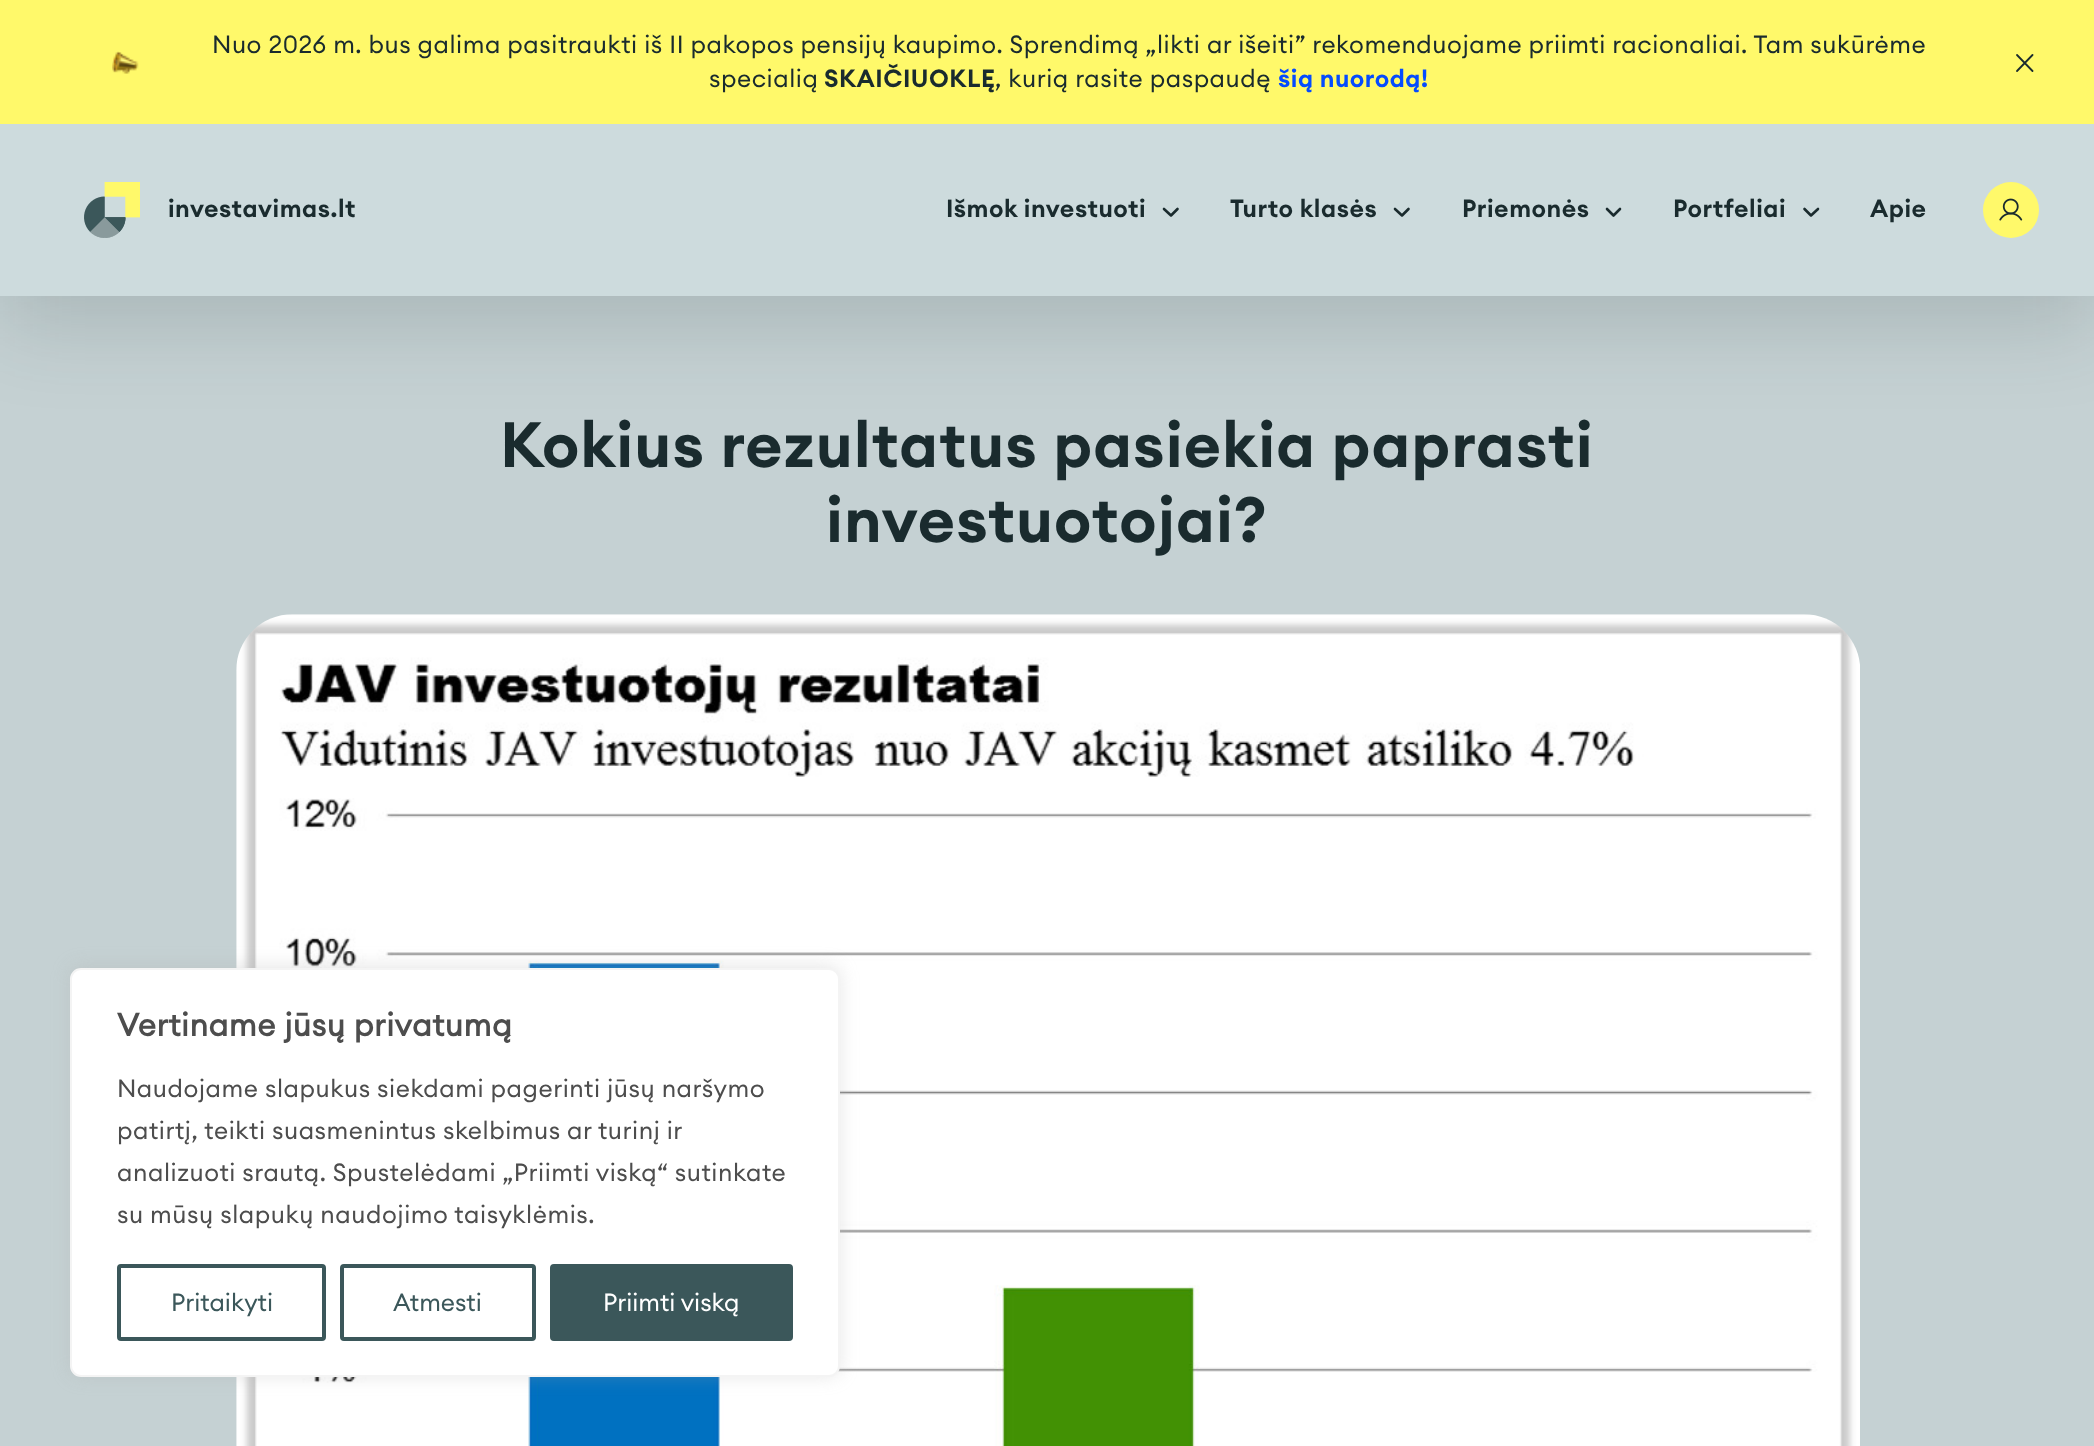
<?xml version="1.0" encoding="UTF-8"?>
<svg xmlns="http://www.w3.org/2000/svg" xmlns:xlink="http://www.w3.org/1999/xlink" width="2094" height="1446">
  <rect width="100%" height="100%" fill="#c5d1d3" />
  <rect y="152" width="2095" height="172" fill="#1a2b2e" fill-opacity="0.16" filter="blur(42px)" />
  <rect width="2094" height="124" fill="#fff96a" />
  <image x="112" y="51" width="27" height="23" xlink:href="image1.png" />
  <path d="M 2032.5 55 l -15.5 16 m 15.5 0 l -15.5 -16" fill="none" stroke="#1a2b2e" stroke-width="1.8" stroke-linecap="round" stroke-linejoin="round" />
  <rect y="124" width="2094" height="172" fill="#cddbdd" />
  <image x="84" y="182" width="56" height="56" xlink:href="image2.png" />
  <path d="M 1177.5 209 l -6.5 6.5 l -7 -6.5" fill="none" stroke="#1a2b2e" stroke-width="2.6" stroke-linecap="round" stroke-linejoin="round" />
  <path d="M 1408.5 209 l -6.5 6.5 l -7 -6.5" fill="none" stroke="#1a2b2e" stroke-width="2.6" stroke-linecap="round" stroke-linejoin="round" />
  <path d="M 1620 209 l -6.5 6.5 l -6.5 -6.5" fill="none" stroke="#1a2b2e" stroke-width="2.6" stroke-linecap="round" stroke-linejoin="round" />
  <path d="M 1818 209 l -7 6.5 l -6.5 -6.5" fill="none" stroke="#1a2b2e" stroke-width="2.6" stroke-linecap="round" stroke-linejoin="round" />
  <circle cx="2011" cy="210" r="28" fill="#fff96a" />
  <image x="1999" y="198" width="24" height="23" xlink:href="image3.png" />
  <image x="236" y="614" width="1624" height="832" xlink:href="image4.png" />
  <rect x="70" y="966" width="770" height="410" rx="11" fill="#acabab" fill-opacity="0.3" filter="blur(9px)" />
  <rect x="71" y="969" width="768" height="407" rx="10" fill="#ffffff" stroke="#f4f4f4" stroke-width="2" />
  <rect x="119" y="1266" width="205" height="73" rx="2" fill="none" stroke="#3b575a" stroke-width="4" />
  <rect x="342" y="1266" width="192" height="73" rx="2" fill="none" stroke="#3b575a" stroke-width="4" />
  <rect x="552" y="1266" width="239" height="73" rx="2" fill="#3b575a" stroke="#3b575a" stroke-width="4" />
  <text x="212" y="53" style="font-family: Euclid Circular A; font-size: 24.5px; letter-spacing: 0.53px; fill: #1a2b2e">Nuo 2026 m. bus galima pasitraukti iš II pakopos pensijų kaupimo. Sprendimą „likti ar išeiti” rekomenduojame priimti racionaliai. Tam sukūrėme</text>
  <text x="709" y="87" style="font-family: Euclid Circular A; font-size: 24.5px; letter-spacing: 0.53px; fill: #1a2b2e">specialią</text>
  <text x="824" y="87" style="font-family: Euclid Circular A; font-size: 24.5px; font-weight: 600; letter-spacing: 0.53px; fill: #1a2b2e">SKAIČIUOKLĘ</text>
  <text x="995" y="87" style="font-family: Euclid Circular A; font-size: 24.5px; letter-spacing: 0.53px; fill: #1a2b2e">, kurią rasite paspaudę</text>
  <text x="1278" y="87" style="font-family: Euclid Circular A; font-size: 24.5px; font-weight: 600; letter-spacing: 0.53px; fill: #054bff">šią nuorodą!</text>
  <text x="168" y="217" style="font-family: Euclid Circular A; font-size: 24.5px; font-weight: 600; letter-spacing: 0.53px; fill: #1a2b2e">investavimas.lt</text>
  <text x="946" y="217" style="font-family: Euclid Circular A; font-size: 24.5px; font-weight: 600; letter-spacing: 0.53px; fill: #1a2b2e">Išmok investuoti</text>
  <text x="1230" y="217" style="font-family: Euclid Circular A; font-size: 24.5px; font-weight: 600; letter-spacing: 0.53px; fill: #1a2b2e">Turto klasės</text>
  <text x="1462" y="217" style="font-family: Euclid Circular A; font-size: 24.5px; font-weight: 600; letter-spacing: 0.53px; fill: #1a2b2e">Priemonės</text>
  <text x="1673" y="217" style="font-family: Euclid Circular A; font-size: 24.5px; font-weight: 600; letter-spacing: 0.53px; fill: #1a2b2e">Portfeliai</text>
  <text x="1870" y="217" style="font-family: Euclid Circular A; font-size: 24.5px; font-weight: 600; letter-spacing: 0.53px; fill: #1a2b2e">Apie</text>
  <text x="500" y="467" style="font-family: Euclid Circular A; font-size: 63px; font-weight: 600; letter-spacing: 1.05px; fill: #1a2b2e">Kokius rezultatus pasiekia paprasti</text>
  <text x="826" y="542" style="font-family: Euclid Circular A; font-size: 63px; font-weight: 600; letter-spacing: 1.05px; fill: #1a2b2e">investuotojai?</text>
  <text x="117" y="1036" style="font-family: Euclid Circular A; font-size: 31.5px; font-weight: bold; letter-spacing: 0.53px; fill: #4d4d4d">Vertiname jūsų privatumą</text>
  <text x="117" y="1097" style="font-family: Euclid Circular A; font-size: 24.5px; letter-spacing: 0.53px; fill: #4d4d4d">Naudojame slapukus siekdami pagerinti jūsų naršymo</text>
  <text x="117" y="1139" style="font-family: Euclid Circular A; font-size: 24.5px; letter-spacing: 0.53px; fill: #4d4d4d">patirtį, teikti suasmenintus skelbimus ar turinį ir</text>
  <text x="117" y="1181" style="font-family: Euclid Circular A; font-size: 24.5px; letter-spacing: 0.53px; fill: #4d4d4d">analizuoti srautą. Spustelėdami „Priimti viską“ sutinkate</text>
  <text x="117" y="1223" style="font-family: Euclid Circular A; font-size: 24.5px; letter-spacing: 0.53px; fill: #4d4d4d">su mūsų slapukų naudojimo taisyklėmis.</text>
  <text x="171" y="1311" style="font-family: Euclid Circular A; font-size: 24.5px; fill: #3b575a">Pritaikyti</text>
  <text x="393" y="1311" style="font-family: Euclid Circular A; font-size: 24.5px; fill: #3b575a">Atmesti</text>
  <text x="603" y="1311" style="font-family: Euclid Circular A; font-size: 24.5px; fill: #ffffff">Priimti viską</text>
</svg>
